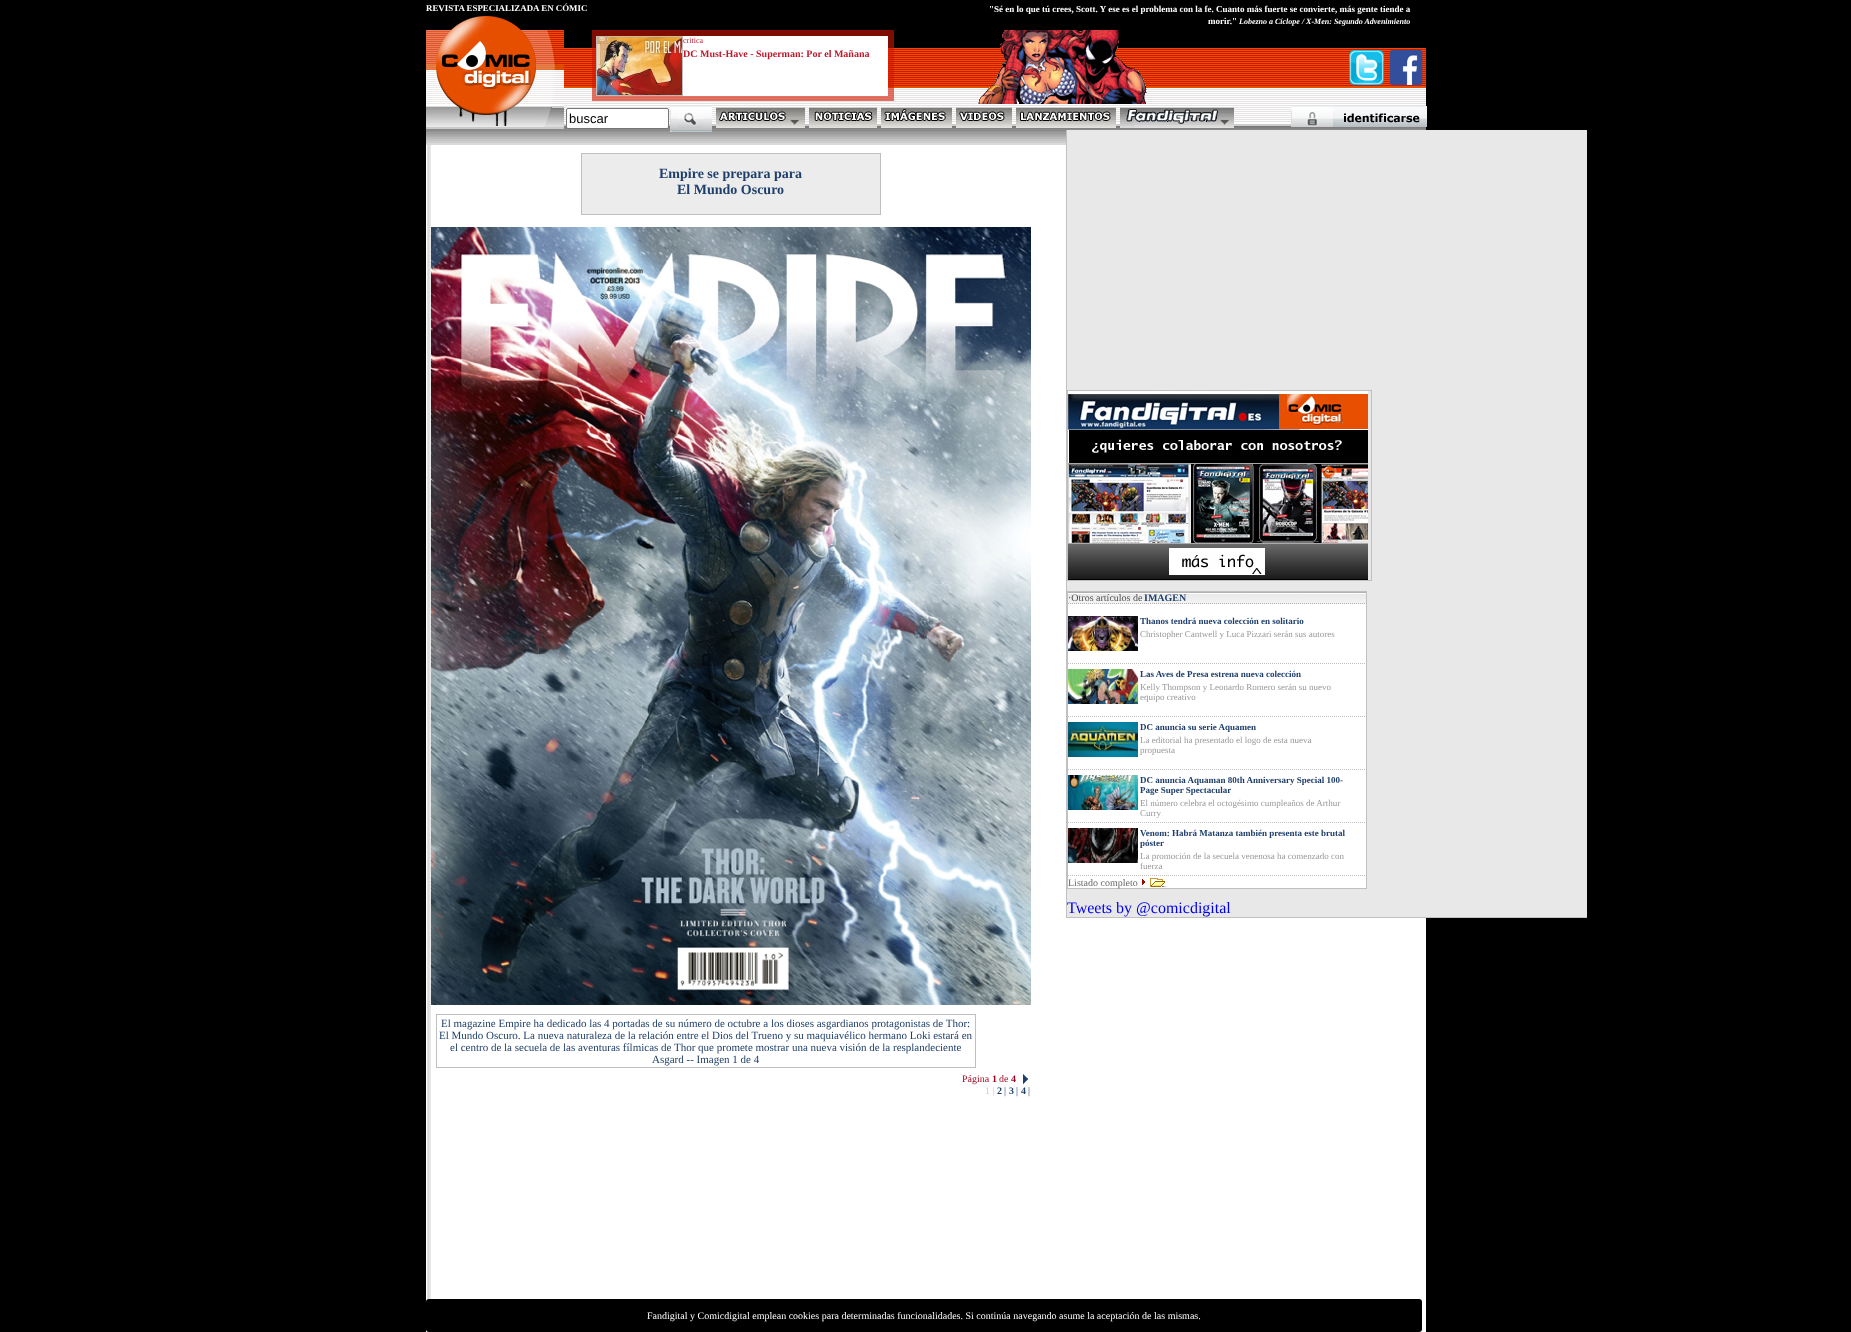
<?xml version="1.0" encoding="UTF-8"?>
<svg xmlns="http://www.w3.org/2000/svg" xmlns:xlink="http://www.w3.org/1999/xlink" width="1851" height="1332">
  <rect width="100%" height="100%" fill="#000000" />
  <image x="426" y="18" width="1000" height="127" xlink:href="image1.png" />
  <rect x="592" y="30" width="302" height="71" fill="#d21600" fill-opacity="0.6" />
  <rect x="683" y="36" width="205" height="60" fill="#ffffff" />
  <image x="426" y="16" width="138" height="113" xlink:href="image3.png" />
  <image x="978" y="30" width="169" height="74" xlink:href="image4.png" />
  <image x="1349" y="50" width="35" height="35" xlink:href="image5.png" />
  <image x="1390" y="50" width="33" height="35" xlink:href="image6.png" />
  <image x="716" y="107" width="89" height="21" xlink:href="image7.png" />
  <image x="809" y="107" width="68" height="21" xlink:href="image8.png" />
  <image x="881" y="107" width="71" height="21" xlink:href="image9.png" />
  <image x="956" y="107" width="56" height="21" xlink:href="image10.png" />
  <image x="1016" y="107" width="100" height="21" xlink:href="image11.png" />
  <image x="1120" y="107" width="114" height="21" xlink:href="image12.png" />
  <image x="1291" y="106" width="136" height="21" xlink:href="image13.png" />
  <rect x="566.5" y="108.5" width="102" height="20" rx="1.5" fill="#ffffff" stroke="#767676" />
  <image x="670" y="106" width="42" height="26" xlink:href="image14.png" />
  <rect x="426" y="145" width="1000" height="1187" fill="#ffffff" />
  <image x="427" y="145" width="4" height="1187" xlink:href="image15.png" />
  <rect x="581.5" y="153.5" width="299" height="61" fill="#ececec" stroke="#bfbfbf" />
  <image x="431" y="227" width="600" height="778" xlink:href="image16.png" />
  <rect x="436.5" y="1014.5" width="539" height="53" fill="none" stroke="#bfbfbf" />
  <image x="1023" y="1074" width="5" height="10" xlink:href="image17.png" />
  <rect x="1067" y="130" width="520" height="787" fill="#e8e8e8" />
  <rect x="1066" y="917" width="521" height="1" fill="#c0c0c0" />
  <rect x="1066" y="130" width="1" height="788" fill="#c0c0c0" />
  <rect x="1067.5" y="390.5" width="304" height="190" fill="none" stroke="#bfbfbf" />
  <image x="1068" y="391" width="300" height="189" xlink:href="image18.png" />
  <rect x="1068" y="604" width="298" height="284" fill="#ffffff" />
  <rect x="1067.5" y="591.5" width="299" height="297" fill="none" stroke="#c0c0c0" />
  <image x="1068" y="592" width="298" height="12" xlink:href="image19.png" />
  <path d="M 1068 603.5 h 298" fill="none" stroke="#b4b0b0" stroke-dasharray="1 1" />
  <path d="M 1068 663.5 h 300" fill="none" stroke="#c0c0c0" stroke-dasharray="1 1" />
  <image x="1068" y="616" width="70" height="35" xlink:href="image20.png" />
  <path d="M 1068 716.5 h 300" fill="none" stroke="#c0c0c0" stroke-dasharray="1 1" />
  <image x="1068" y="669" width="70" height="35" xlink:href="image21.png" />
  <path d="M 1068 769.5 h 300" fill="none" stroke="#c0c0c0" stroke-dasharray="1 1" />
  <image x="1068" y="722" width="70" height="35" xlink:href="image22.png" />
  <path d="M 1068 822.5 h 300" fill="none" stroke="#c0c0c0" stroke-dasharray="1 1" />
  <image x="1068" y="775" width="70" height="35" xlink:href="image23.png" />
  <path d="M 1068 875.5 h 300" fill="none" stroke="#c0c0c0" stroke-dasharray="1 1" />
  <image x="1068" y="828" width="70" height="35" xlink:href="image24.png" />
  <image x="1142" y="878" width="25" height="9" xlink:href="image25.png" />
  <rect x="426" y="1299" width="996" height="33" rx="3" fill="#000000" />
  <text x="426" y="11" style="font-family: Liberation Serif; font-size: 8.9px; font-weight: bold; fill: #ffffff">REVISTA ESPECIALIZADA EN CÓMIC</text>
  <text x="989" y="12" style="font-family: Liberation Serif; font-size: 9px; font-weight: bold; fill: #ffffff">"Sé en lo que tú crees, Scott. Y ese es el problema con la fe. Cuanto más fuerte se convierte, más gente tiende a</text>
  <text x="1208" y="24" style="font-family: Liberation Serif; font-size: 9px; font-weight: bold; fill: #ffffff">morir."</text>
  <text x="1239" y="24" style="font-family: Liberation Serif; font-size: 8px; font-weight: bold; font-style: italic; fill: #ffffff">Lobezno a Cíclope / X-Men: Segundo Advenimiento</text>
  <text x="683" y="43" style="font-family: Liberation Serif; font-size: 8px; fill: #bd192d">critica</text>
  <text x="683" y="57" style="font-family: Liberation Serif; font-size: 10px; font-weight: bold; fill: #bd192d">DC Must-Have - Superman: Por el Mañana</text>
  <rect x="596.5" y="36.5" width="86" height="59" fill="none" stroke="#bbbcb8" />
  <image x="597" y="37" width="85" height="58" xlink:href="image2.png" />
  <text x="569" y="123" style="font-family: Liberation Sans; font-size: 13px; fill: #000000">buscar</text>
  <text x="659" y="178" style="font-family: Liberation Serif; font-size: 14px; font-weight: bold; fill: #1f3f6b">Empire se prepara para</text>
  <text x="677" y="194" style="font-family: Liberation Serif; font-size: 14px; font-weight: bold; fill: #1f3f6b">El Mundo Oscuro</text>
  <text x="441" y="1027" style="font-family: Liberation Serif; font-size: 11px; fill: #1f3f6b">El magazine Empire ha dedicado las 4 portadas de su número de octubre a los dioses asgardianos protagonistas de Thor:</text>
  <text x="439" y="1039" style="font-family: Liberation Serif; font-size: 11px; fill: #1f3f6b">El Mundo Oscuro. La nueva naturaleza de la relación entre el Dios del Trueno y su maquiavélico hermano Loki estará en</text>
  <text x="450" y="1051" style="font-family: Liberation Serif; font-size: 11px; fill: #1f3f6b">el centro de la secuela de las aventuras fílmicas de Thor que promete mostrar una nueva visión de la resplandeciente</text>
  <text x="652" y="1063" style="font-family: Liberation Serif; font-size: 11px; fill: #1f3f6b">Asgard -- Imagen 1 de 4</text>
  <text x="962" y="1082" style="font-family: Liberation Serif; font-size: 10px; fill: #99041b">Página</text>
  <text x="992" y="1082" style="font-family: Liberation Serif; font-size: 10px; font-weight: bold; fill: #99041b">1</text>
  <text x="999" y="1082" style="font-family: Liberation Serif; font-size: 10px; fill: #99041b">de</text>
  <text x="1011" y="1082" style="font-family: Liberation Serif; font-size: 10px; font-weight: bold; fill: #99041b">4</text>
  <text x="985" y="1094" style="font-family: Liberation Serif; font-size: 10px; fill: #cccccc">1 |</text>
  <text x="997" y="1094" style="font-family: Liberation Serif; font-size: 10px; font-weight: bold; fill: #1f3f6b">2</text>
  <text x="1004" y="1094" style="font-family: Liberation Serif; font-size: 10px; fill: #1f3f6b">|</text>
  <text x="1009" y="1094" style="font-family: Liberation Serif; font-size: 10px; font-weight: bold; fill: #1f3f6b">3</text>
  <text x="1016" y="1094" style="font-family: Liberation Serif; font-size: 10px; fill: #1f3f6b">|</text>
  <text x="1021" y="1094" style="font-family: Liberation Serif; font-size: 10px; font-weight: bold; fill: #1f3f6b">4</text>
  <text x="1028" y="1094" style="font-family: Liberation Serif; font-size: 10px; fill: #1f3f6b">|</text>
  <text x="1068" y="601" style="font-family: Liberation Serif; font-size: 10px; fill: #4d4d4d">·Otros artículos de</text>
  <text x="1144" y="601" style="font-family: Liberation Serif; font-size: 10px; font-weight: bold; fill: #1f3f6b">IMAGEN</text>
  <text x="1140" y="624" style="font-family: Liberation Serif; font-size: 9px; font-weight: bold; fill: #1f3f6b">Thanos tendrá nueva colección en solitario</text>
  <text x="1140" y="637" style="font-family: Liberation Serif; font-size: 9px; fill: #999999">Christopher Cantwell y Luca Pizzari serán sus autores</text>
  <text x="1140" y="677" style="font-family: Liberation Serif; font-size: 9px; font-weight: bold; fill: #1f3f6b">Las Aves de Presa estrena nueva colección</text>
  <text x="1140" y="690" style="font-family: Liberation Serif; font-size: 9px; fill: #999999">Kelly Thompson y Leonardo Romero serán su nuevo</text>
  <text x="1140" y="700" style="font-family: Liberation Serif; font-size: 9px; fill: #999999">equipo creativo</text>
  <text x="1140" y="730" style="font-family: Liberation Serif; font-size: 9px; font-weight: bold; fill: #1f3f6b">DC anuncia su serie Aquamen</text>
  <text x="1140" y="743" style="font-family: Liberation Serif; font-size: 9px; fill: #999999">La editorial ha presentado el logo de esta nueva</text>
  <text x="1140" y="753" style="font-family: Liberation Serif; font-size: 9px; fill: #999999">propuesta</text>
  <text x="1140" y="783" style="font-family: Liberation Serif; font-size: 9px; font-weight: bold; fill: #1f3f6b">DC anuncia Aquaman 80th Anniversary Special 100-</text>
  <text x="1140" y="793" style="font-family: Liberation Serif; font-size: 9px; font-weight: bold; fill: #1f3f6b">Page Super Spectacular</text>
  <text x="1140" y="806" style="font-family: Liberation Serif; font-size: 9px; fill: #999999">El número celebra el octogésimo cumpleaños de Arthur</text>
  <text x="1140" y="816" style="font-family: Liberation Serif; font-size: 9px; fill: #999999">Curry</text>
  <text x="1140" y="836" style="font-family: Liberation Serif; font-size: 9px; font-weight: bold; fill: #1f3f6b">Venom: Habrá Matanza también presenta este brutal</text>
  <text x="1140" y="846" style="font-family: Liberation Serif; font-size: 9px; font-weight: bold; fill: #1f3f6b">póster</text>
  <text x="1140" y="859" style="font-family: Liberation Serif; font-size: 9px; fill: #999999">La promoción de la secuela venenosa ha comenzado con</text>
  <text x="1140" y="869" style="font-family: Liberation Serif; font-size: 9px; fill: #999999">fuerza</text>
  <text x="1068" y="886" style="font-family: Liberation Serif; font-size: 10px; fill: #666666">Listado completo</text>
  <text x="1067" y="913" style="font-family: Liberation Serif; font-size: 16px; fill: #0000ee">Tweets by @comicdigital</text>
  <text x="647" y="1319" style="font-family: Liberation Serif; font-size: 10px; fill: #ffffff">Fandigital y Comicdigital emplean cookies para determinadas funcionalidades. Si continúa navegando asume la aceptación de las mismas.</text>
</svg>
